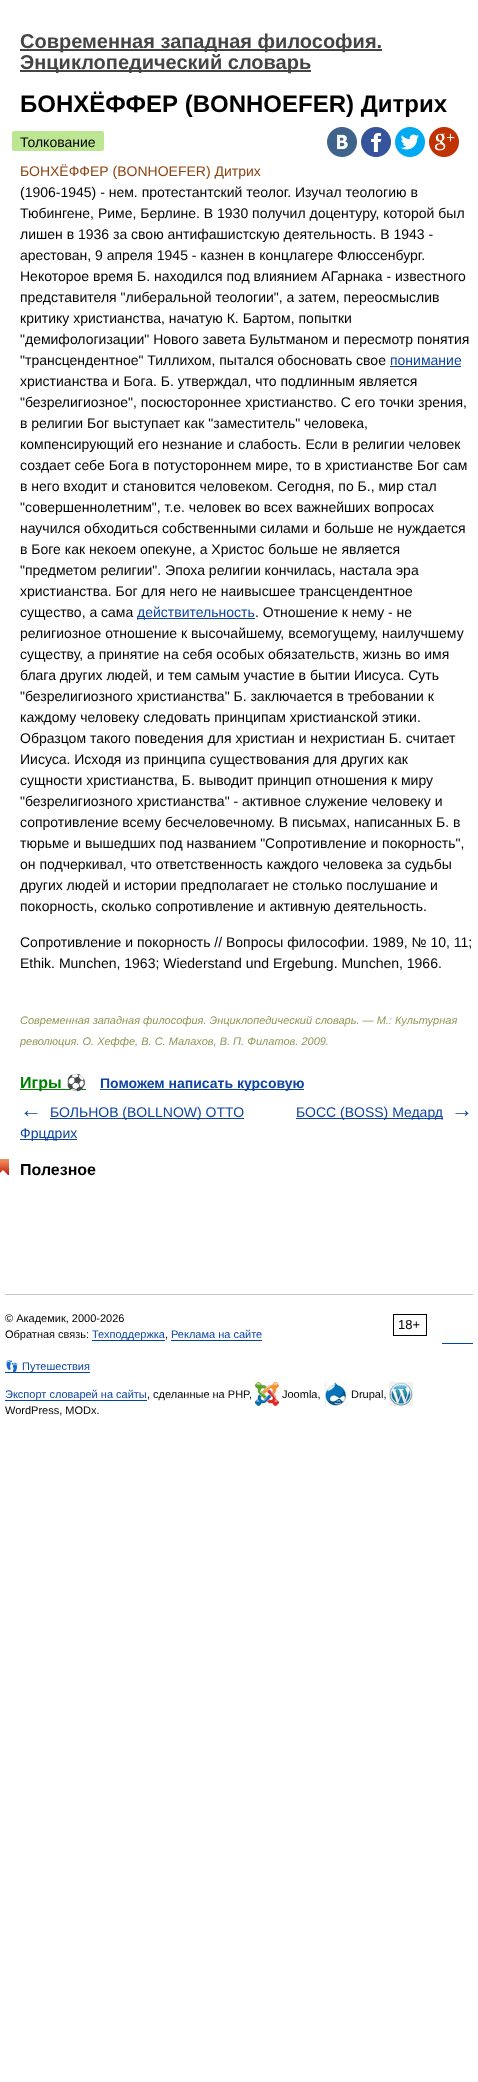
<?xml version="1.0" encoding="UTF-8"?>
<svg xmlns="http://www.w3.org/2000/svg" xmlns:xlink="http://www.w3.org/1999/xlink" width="478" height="2082">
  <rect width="100%" height="100%" fill="#ffffff" />
  <rect x="20" y="49" width="362" height="2" fill="#454545" />
  <rect x="20" y="70" width="291" height="2" fill="#454545" />
  <rect x="12" y="131" width="92" height="20" rx="2" fill="#bde693" />
  <image x="327" y="127" width="30" height="30" xlink:href="image1.png" />
  <image x="361" y="127" width="30" height="30" xlink:href="image2.png" />
  <image x="395" y="127" width="30" height="30" xlink:href="image3.png" />
  <image x="429" y="127" width="30" height="30" xlink:href="image4.png" />
  <rect x="390" y="366" width="71" height="1" fill="#0d44a0" />
  <rect x="137" y="618" width="118" height="1" fill="#0d44a0" />
  <rect x="20" y="1089" width="66" height="1" fill="#008000" />
  <rect x="100" y="1089" width="204" height="1" fill="#0d44a0" />
  <rect x="50" y="1118" width="194" height="1" fill="#0d44a0" />
  <rect x="20" y="1139" width="57" height="1" fill="#0d44a0" />
  <rect x="296" y="1118" width="147" height="1" fill="#0d44a0" />
  <image x="0" y="1159" width="9" height="16" xlink:href="image5.png" />
  <rect x="5" y="1294" width="468" height="1" fill="#c7c7c7" />
  <rect x="393.5" y="1314.5" width="33" height="21" fill="none" stroke="#000000" />
  <rect x="92" y="1340" width="73" height="1" fill="#0044aa" />
  <rect x="171" y="1340" width="91" height="1" fill="#0044aa" />
  <rect x="442" y="1343" width="31" height="1" fill="#0044aa" />
  <rect x="5" y="1372" width="85" height="1" fill="#0044aa" />
  <rect x="5" y="1400" width="142" height="1" fill="#0044aa" />
  <image x="255" y="1382" width="24" height="24" xlink:href="image6.png" />
  <image x="324" y="1382" width="24" height="24" xlink:href="image7.png" />
  <image x="389" y="1382" width="24" height="24" xlink:href="image8.png" />
  <text x="20" y="48" style="font-family: Liberation Sans; font-size: 20px; font-weight: bold; fill: #454545">Современная западная философия.</text>
  <text x="20" y="69" style="font-family: Liberation Sans; font-size: 20px; font-weight: bold; fill: #454545">Энциклопедический словарь</text>
  <text x="20" y="112" style="font-family: Liberation Sans; font-size: 24px; font-weight: bold; fill: #000000">БОНХЁФФЕР (BONHOEFER) Дитрих</text>
  <text x="20" y="147" style="font-family: Liberation Sans; font-size: 14px; fill: #000000">Толкование</text>
  <text x="20" y="176" style="font-family: Liberation Sans; font-size: 14px; fill: #8b4513">БОНХЁФФЕР (BONHOEFER) Дитрих</text>
  <text x="20" y="197" style="font-family: Liberation Sans; font-size: 14px; fill: #000000">(1906-1945) - нем. протестантский теолог. Изучал теологию в</text>
  <text x="20" y="218" style="font-family: Liberation Sans; font-size: 14px; fill: #000000">Тюбингене, Риме, Берлине. В 1930 получил доцентуру, которой был</text>
  <text x="20" y="239" style="font-family: Liberation Sans; font-size: 14px; fill: #000000">лишен в 1936 за свою антифашистскую деятельность. В 1943 -</text>
  <text x="20" y="260" style="font-family: Liberation Sans; font-size: 14px; fill: #000000">арестован, 9 апреля 1945 - казнен в концлагере Флюссенбург.</text>
  <text x="20" y="281" style="font-family: Liberation Sans; font-size: 14px; fill: #000000">Некоторое время Б. находился под влиянием АГарнака - известного</text>
  <text x="20" y="302" style="font-family: Liberation Sans; font-size: 14px; fill: #000000">представителя "либеральной теологии", а затем, переосмыслив</text>
  <text x="20" y="323" style="font-family: Liberation Sans; font-size: 14px; fill: #000000">критику христианства, начатую К. Бартом, попытки</text>
  <text x="20" y="344" style="font-family: Liberation Sans; font-size: 14px; fill: #000000">"демифологизации" Нового завета Бультманом и пересмотр понятия</text>
  <text x="20" y="365" style="font-family: Liberation Sans; font-size: 14px; fill: #000000">"трансцендентное" Тиллихом, пытался обосновать свое</text>
  <text x="390" y="365" style="font-family: Liberation Sans; font-size: 14px; fill: #0d44a0">понимание</text>
  <text x="20" y="386" style="font-family: Liberation Sans; font-size: 14px; fill: #000000">христианства и Бога. Б. утверждал, что подлинным является</text>
  <text x="20" y="407" style="font-family: Liberation Sans; font-size: 14px; fill: #000000">"безрелигиозное", посюстороннее христианство. С его точки зрения,</text>
  <text x="20" y="428" style="font-family: Liberation Sans; font-size: 14px; fill: #000000">в религии Бог выступает как "заместитель" человека,</text>
  <text x="20" y="449" style="font-family: Liberation Sans; font-size: 14px; fill: #000000">компенсирующий его незнание и слабость. Если в религии человек</text>
  <text x="20" y="470" style="font-family: Liberation Sans; font-size: 14px; fill: #000000">создает себе Бога в потустороннем мире, то в христианстве Бог сам</text>
  <text x="20" y="491" style="font-family: Liberation Sans; font-size: 14px; fill: #000000">в него входит и становится человеком. Сегодня, по Б., мир стал</text>
  <text x="20" y="512" style="font-family: Liberation Sans; font-size: 14px; fill: #000000">"совершеннолетним", т.е. человек во всех важнейших вопросах</text>
  <text x="20" y="533" style="font-family: Liberation Sans; font-size: 14px; fill: #000000">научился обходиться собственными силами и больше не нуждается</text>
  <text x="20" y="554" style="font-family: Liberation Sans; font-size: 14px; fill: #000000">в Боге как некоем опекуне, а Христос больше не является</text>
  <text x="20" y="575" style="font-family: Liberation Sans; font-size: 14px; fill: #000000">"предметом религии". Эпоха религии кончилась, настала эра</text>
  <text x="20" y="596" style="font-family: Liberation Sans; font-size: 14px; fill: #000000">христианства. Бог для него не наивысшее трансцендентное</text>
  <text x="20" y="617" style="font-family: Liberation Sans; font-size: 14px; fill: #000000">существо, а сама</text>
  <text x="137" y="617" style="font-family: Liberation Sans; font-size: 14px; fill: #0d44a0">действительность</text>
  <text x="255" y="617" style="font-family: Liberation Sans; font-size: 14px; fill: #000000">. Отношение к нему - не</text>
  <text x="20" y="638" style="font-family: Liberation Sans; font-size: 14px; fill: #000000">религиозное отношение к высочайшему, всемогущему, наилучшему</text>
  <text x="20" y="659" style="font-family: Liberation Sans; font-size: 14px; fill: #000000">существу, а принятие на себя особых обязательств, жизнь во имя</text>
  <text x="20" y="680" style="font-family: Liberation Sans; font-size: 14px; fill: #000000">блага других людей, и тем самым участие в бытии Иисуса. Суть</text>
  <text x="20" y="701" style="font-family: Liberation Sans; font-size: 14px; fill: #000000">"безрелигиозного христианства" Б. заключается в требовании к</text>
  <text x="20" y="722" style="font-family: Liberation Sans; font-size: 14px; fill: #000000">каждому человеку следовать принципам христианской этики.</text>
  <text x="20" y="743" style="font-family: Liberation Sans; font-size: 14px; fill: #000000">Образцом такого поведения для христиан и нехристиан Б. считает</text>
  <text x="20" y="764" style="font-family: Liberation Sans; font-size: 14px; fill: #000000">Иисуса. Исходя из принципа существования для других как</text>
  <text x="20" y="785" style="font-family: Liberation Sans; font-size: 14px; fill: #000000">сущности христианства, Б. выводит принцип отношения к миру</text>
  <text x="20" y="806" style="font-family: Liberation Sans; font-size: 14px; fill: #000000">"безрелигиозного христианства" - активное служение человеку и</text>
  <text x="20" y="827" style="font-family: Liberation Sans; font-size: 14px; fill: #000000">сопротивление всему бесчеловечному. В письмах, написанных Б. в</text>
  <text x="20" y="848" style="font-family: Liberation Sans; font-size: 14px; fill: #000000">тюрьме и вышедших под названием "Сопротивление и покорность",</text>
  <text x="20" y="869" style="font-family: Liberation Sans; font-size: 14px; fill: #000000">он подчеркивал, что ответственность каждого человека за судьбы</text>
  <text x="20" y="890" style="font-family: Liberation Sans; font-size: 14px; fill: #000000">других людей и истории предполагает не столько послушание и</text>
  <text x="20" y="911" style="font-family: Liberation Sans; font-size: 14px; fill: #000000">покорность, сколько сопротивление и активную деятельность.</text>
  <text x="20" y="947" style="font-family: Liberation Sans; font-size: 14px; fill: #000000">Сопротивление и покорность // Вопросы философии. 1989, № 10, 11;</text>
  <text x="20" y="968" style="font-family: Liberation Sans; font-size: 14px; fill: #000000">Ethik. Munchen, 1963; Wiederstand und Ergebung. Munchen, 1966.</text>
  <text x="20" y="1024" style="font-family: Liberation Sans; font-size: 11px; font-style: italic; fill: #939756">Современная западная философия. Энциклопедический словарь. — М.: Культурная</text>
  <text x="20" y="1045" style="font-family: Liberation Sans; font-size: 11px; font-style: italic; fill: #939756">революция. О. Хеффе, В. С. Малахов, В. П. Филатов. 2009.</text>
  <text x="20" y="1088" style="font-family: Liberation Sans; font-size: 16px; font-weight: bold; fill: #008000">Игры</text>
  <text x="66" y="1088" style="font-family: Noto Color Emoji; font-size: 16px; font-weight: bold; fill: #008000">⚽</text>
  <text x="100" y="1088" style="font-family: Liberation Sans; font-size: 14px; font-weight: bold; fill: #0d44a0">Поможем написать курсовую</text>
  <text x="20" y="1117" style="font-family: Liberation Sans; font-size: 22px; font-weight: bold; fill: #0d44a0">←</text>
  <text x="50" y="1117" style="font-family: Liberation Sans; font-size: 14px; fill: #0d44a0">БОЛЬНОВ (BOLLNOW) OTTO</text>
  <text x="20" y="1138" style="font-family: Liberation Sans; font-size: 14px; fill: #0d44a0">Фрцдрих</text>
  <text x="296" y="1117" style="font-family: Liberation Sans; font-size: 14px; fill: #0d44a0">БОСС (BOSS) Медард</text>
  <text x="451" y="1117" style="font-family: Liberation Sans; font-size: 22px; font-weight: bold; fill: #0d44a0">→</text>
  <text x="20" y="1175" style="font-family: Liberation Sans; font-size: 16px; font-weight: bold; fill: #000000">Полезное</text>
  <text x="5" y="1322" style="font-family: Liberation Sans; font-size: 11px; fill: #000000">© Академик, 2000-2026</text>
  <text x="398" y="1329" style="font-family: Liberation Sans; font-size: 13px; fill: #000000">18+</text>
  <text x="5" y="1338" style="font-family: Liberation Sans; font-size: 11px; fill: #000000">Обратная связь:</text>
  <text x="92" y="1338" style="font-family: Liberation Sans; font-size: 11px; fill: #0d44a0">Техподдержка</text>
  <text x="165" y="1338" style="font-family: Liberation Sans; font-size: 11px; fill: #000000">,</text>
  <text x="171" y="1338" style="font-family: Liberation Sans; font-size: 11px; fill: #0d44a0">Реклама на сайте</text>
  <text x="5" y="1370" style="font-family: Noto Color Emoji; font-size: 11px; fill: #0d44a0">👣</text>
  <text x="22" y="1370" style="font-family: Liberation Sans; font-size: 11px; fill: #0d44a0">Путешествия</text>
  <text x="5" y="1398" style="font-family: Liberation Sans; font-size: 11px; fill: #0d44a0">Экспорт словарей на сайты</text>
  <text x="147" y="1398" style="font-family: Liberation Sans; font-size: 11px; fill: #000000">, сделанные на PHP,</text>
  <text x="282" y="1398" style="font-family: Liberation Sans; font-size: 11px; fill: #000000">Joomla,</text>
  <text x="351" y="1398" style="font-family: Liberation Sans; font-size: 11px; fill: #000000">Drupal,</text>
  <text x="5" y="1414" style="font-family: Liberation Sans; font-size: 11px; fill: #000000">WordPress, MODx.</text>
</svg>
